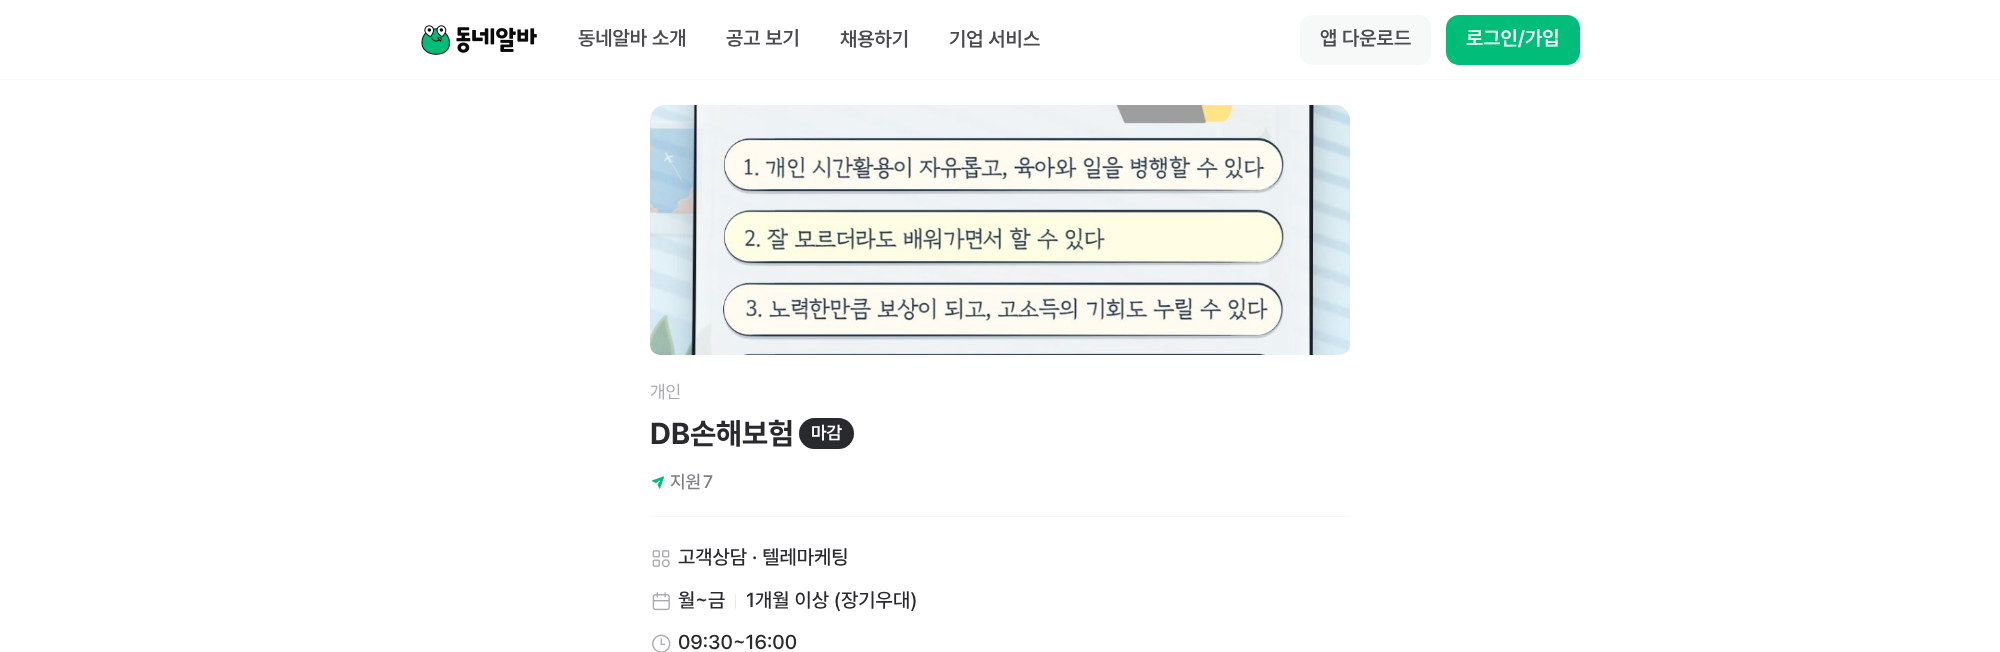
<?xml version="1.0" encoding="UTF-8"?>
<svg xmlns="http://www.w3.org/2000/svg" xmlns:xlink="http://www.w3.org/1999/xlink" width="2000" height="652">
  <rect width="100%" height="100%" fill="#f7f8f8" />
  <rect width="2000" height="79" fill="#ffffff" />
  <image x="421" y="25" width="116" height="30" xlink:href="image1.png" />
  <rect x="1300" y="15" width="131" height="50" rx="13" fill="#f7f8f8" />
  <rect x="1446" y="15" width="134" height="50" rx="13" fill="#00be7a" />
  <rect y="80" width="2000" height="572" fill="#ffffff" />
  <image x="650" y="105" width="700" height="250" xlink:href="image2.png" />
  <rect x="799" y="418" width="55" height="31" rx="15.5" fill="#292a2e" />
  <image x="651" y="476" width="14" height="13" xlink:href="image3.png" />
  <rect x="650" y="516" width="700" height="1" fill="#f7f8f8" />
  <image x="652" y="550" width="18" height="18" xlink:href="image4.png" />
  <image x="652" y="592" width="18" height="19" xlink:href="image5.png" />
  <rect x="735" y="594" width="1" height="15" fill="#e8eaed" />
  <image x="652" y="634" width="19" height="18" xlink:href="image6.png" />
  <text x="578" y="45" style="font-family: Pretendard; font-size: 20px; font-weight: 600; fill: #4b4c50">동네알바 소개</text>
  <text x="726" y="45" style="font-family: Pretendard; font-size: 20px; font-weight: 600; fill: #4b4c50">공고 보기</text>
  <text x="840" y="46" style="font-family: Pretendard; font-size: 20px; font-weight: 600; fill: #4b4c50">채용하기</text>
  <text x="949" y="46" style="font-family: Pretendard; font-size: 20px; font-weight: 600; fill: #4b4c50">기업 서비스</text>
  <text x="1320" y="45" style="font-family: Pretendard; font-size: 20px; font-weight: 600; fill: #4b4c50">앱 다운로드</text>
  <text x="1466" y="45" style="font-family: Pretendard; font-size: 20px; font-weight: 600; fill: #ffffff">로그인/가입</text>
  <text x="650" y="398" style="font-family: Pretendard; font-size: 18px; fill: #a9abaf">개인</text>
  <text x="650" y="444" style="font-family: Pretendard; font-size: 30px; font-weight: bold; fill: #292a2e">DB손해보험</text>
  <text x="811" y="439" style="font-family: Pretendard; font-size: 18px; font-weight: 600; fill: #ffffff">마감</text>
  <text x="670" y="488" style="font-family: Pretendard; font-size: 18px; font-weight: 500; fill: #7f8085">지원</text>
  <text x="703" y="488" style="font-family: Pretendard; font-size: 18px; font-weight: 500; fill: #7f8085">7</text>
  <text x="678" y="564" style="font-family: Pretendard; font-size: 20px; font-weight: 500; fill: #292a2e">고객상담 · 텔레마케팅</text>
  <text x="678" y="607" style="font-family: Pretendard; font-size: 20px; font-weight: 500; fill: #292a2e">월~금</text>
  <text x="746" y="607" style="font-family: Pretendard; font-size: 20px; font-weight: 500; fill: #292a2e">1개월 이상 (장기우대)</text>
  <text x="678" y="649" style="font-family: Pretendard; font-size: 20px; font-weight: 500; fill: #292a2e">09:30~16:00</text>
</svg>
